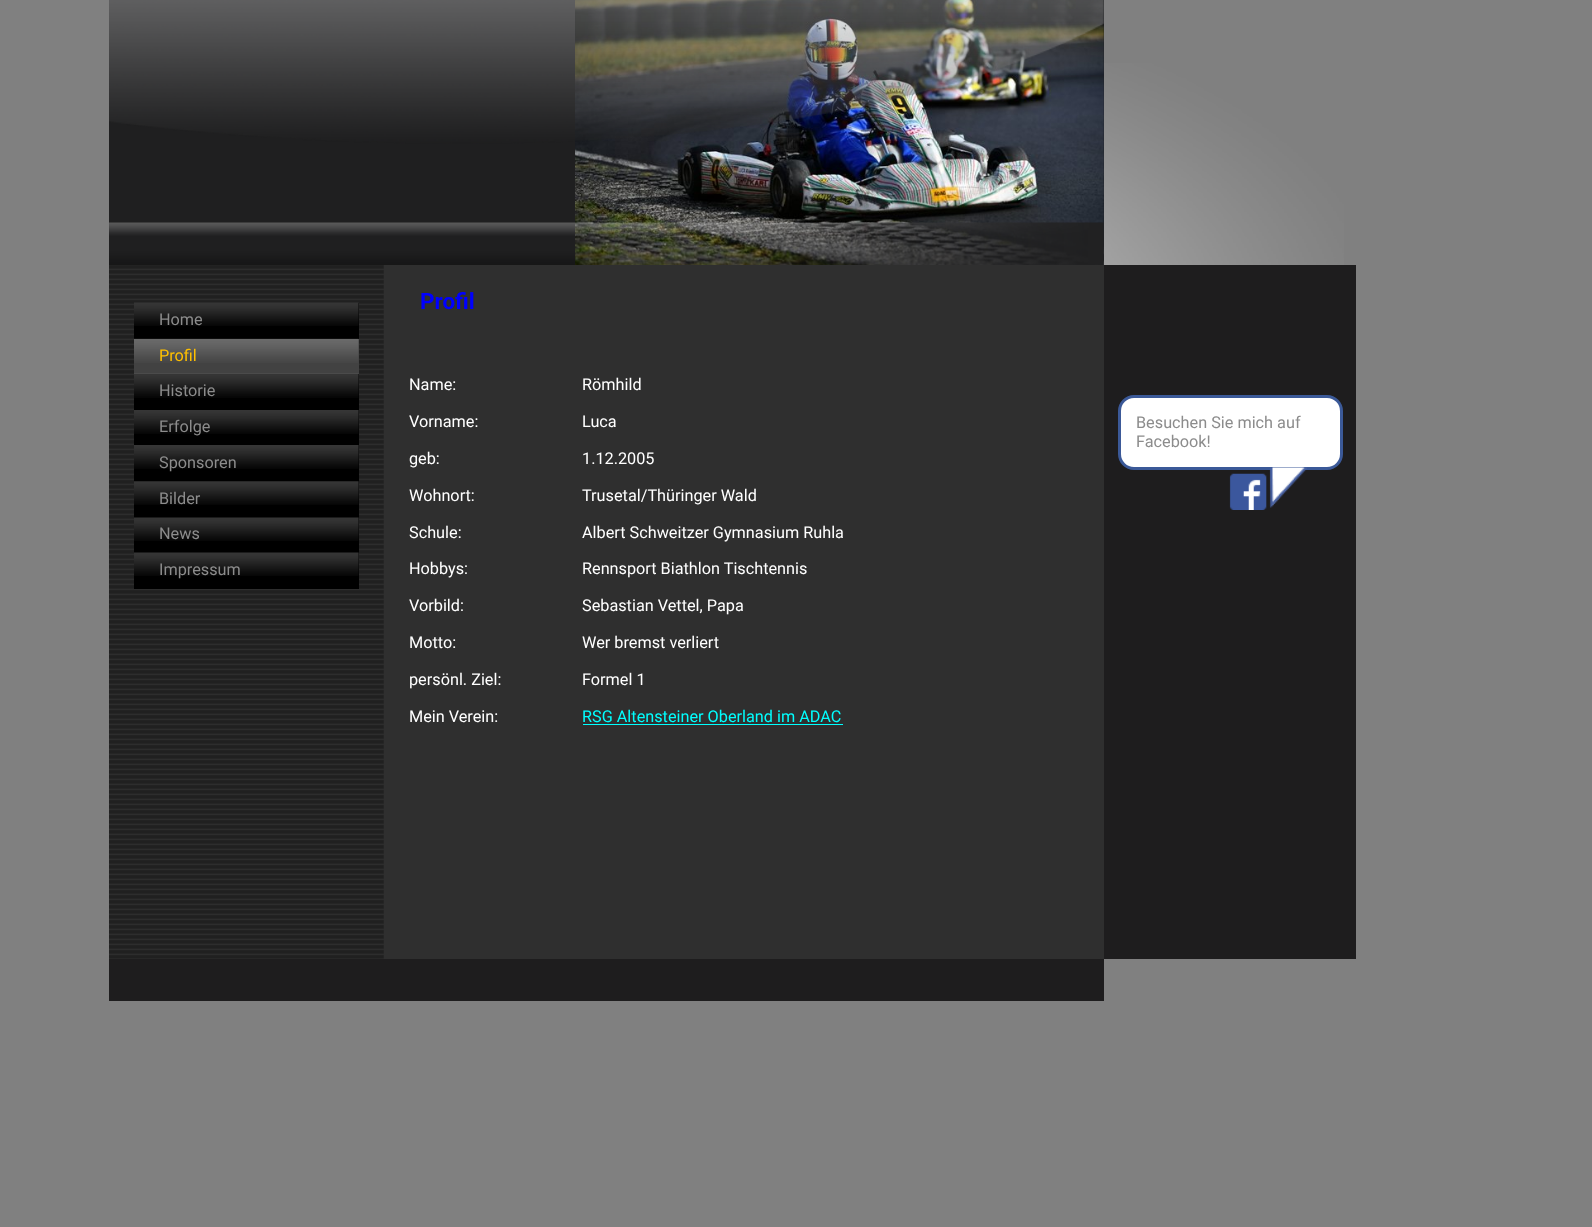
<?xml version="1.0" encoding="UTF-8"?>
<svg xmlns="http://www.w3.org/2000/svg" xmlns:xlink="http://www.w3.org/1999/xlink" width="1592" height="1227">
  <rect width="100%" height="100%" fill="#808080" />
  <image x="1104" y="63" width="240" height="202" xlink:href="image1.png" />
  <rect x="109" width="995" height="265" fill="#1f1f20" />
  <image x="575" y="0" width="529" height="265" xlink:href="image3.png" />
  <image x="109" y="0" width="995" height="265" xlink:href="image2.png" />
  <rect x="109" y="265" width="995" height="694" fill="#2f2f2f" />
  <image x="109" y="265" width="275" height="694" xlink:href="image4.png" />
  <rect x="134" y="303" width="225" height="36" fill="#000000" />
  <image x="134" y="302" width="225" height="24" xlink:href="image5.png" />
  <rect x="134" y="339" width="225" height="35" fill="#424242" />
  <image x="134" y="338" width="225" height="25" xlink:href="image6.png" />
  <rect x="134" y="374" width="225" height="215" fill="#000000" />
  <image x="134" y="373" width="225" height="25" xlink:href="image7.png" />
  <image x="134" y="410" width="225" height="24" xlink:href="image8.png" />
  <image x="134" y="445" width="225" height="24" xlink:href="image8.png" />
  <image x="134" y="481" width="225" height="24" xlink:href="image9.png" />
  <image x="134" y="517" width="225" height="24" xlink:href="image10.png" />
  <image x="134" y="552" width="225" height="24" xlink:href="image10.png" />
  <rect x="583" y="724" width="260" height="1" fill="#00ffff" />
  <rect x="1104" y="265" width="252" height="694" fill="#1e1d1e" />
  <rect x="1119.5" y="396.5" width="222" height="72" rx="14.5" fill="#ffffff" stroke="#3b5998" stroke-width="3" />
  <image x="1229" y="467" width="78" height="43" xlink:href="image11.png" />
  <rect x="109" y="959" width="995" height="42" fill="#1e1d1e" />
  <text x="159" y="325" style="font-family: Roboto; font-size: 16.25px; fill: #8c8c8c">Home</text>
  <text x="159" y="361" style="font-family: Roboto; font-size: 16.25px; fill: #ffc000">Profil</text>
  <text x="159" y="396" style="font-family: Roboto; font-size: 16.25px; fill: #8c8c8c">Historie</text>
  <text x="159" y="432" style="font-family: Roboto; font-size: 16.25px; fill: #8c8c8c">Erfolge</text>
  <text x="159" y="468" style="font-family: Roboto; font-size: 16.25px; fill: #8c8c8c">Sponsoren</text>
  <text x="159" y="504" style="font-family: Roboto; font-size: 16.25px; fill: #8c8c8c">Bilder</text>
  <text x="159" y="539" style="font-family: Roboto; font-size: 16.25px; fill: #8c8c8c">News</text>
  <text x="159" y="575" style="font-family: Roboto; font-size: 16.25px; fill: #8c8c8c">Impressum</text>
  <text x="420" y="309" style="font-family: Roboto; font-size: 22.5px; font-weight: bold; fill: #0000ff">Profil</text>
  <text x="409" y="390" style="font-family: Roboto; font-size: 16.25px; fill: #ffffff">Name:</text>
  <text x="582" y="390" style="font-family: Roboto; font-size: 16.25px; fill: #ffffff">Römhild</text>
  <text x="409" y="427" style="font-family: Roboto; font-size: 16.25px; fill: #ffffff">Vorname:</text>
  <text x="582" y="427" style="font-family: Roboto; font-size: 16.25px; fill: #ffffff">Luca</text>
  <text x="409" y="464" style="font-family: Roboto; font-size: 16.25px; fill: #ffffff">geb:</text>
  <text x="582" y="464" style="font-family: Roboto; font-size: 16.25px; fill: #ffffff">1.12.2005</text>
  <text x="409" y="501" style="font-family: Roboto; font-size: 16.25px; fill: #ffffff">Wohnort:</text>
  <text x="582" y="501" style="font-family: Roboto; font-size: 16.25px; fill: #ffffff">Trusetal/Thüringer Wald</text>
  <text x="409" y="538" style="font-family: Roboto; font-size: 16.25px; fill: #ffffff">Schule:</text>
  <text x="582" y="538" style="font-family: Roboto; font-size: 16.25px; fill: #ffffff">Albert Schweitzer Gymnasium Ruhla</text>
  <text x="409" y="574" style="font-family: Roboto; font-size: 16.25px; fill: #ffffff">Hobbys:</text>
  <text x="582" y="574" style="font-family: Roboto; font-size: 16.25px; fill: #ffffff">Rennsport Biathlon Tischtennis</text>
  <text x="409" y="611" style="font-family: Roboto; font-size: 16.25px; fill: #ffffff">Vorbild:</text>
  <text x="582" y="611" style="font-family: Roboto; font-size: 16.25px; fill: #ffffff">Sebastian Vettel, Papa</text>
  <text x="409" y="648" style="font-family: Roboto; font-size: 16.25px; fill: #ffffff">Motto:</text>
  <text x="582" y="648" style="font-family: Roboto; font-size: 16.25px; fill: #ffffff">Wer bremst verliert</text>
  <text x="409" y="685" style="font-family: Roboto; font-size: 16.25px; fill: #ffffff">persönl. Ziel:</text>
  <text x="582" y="685" style="font-family: Roboto; font-size: 16.25px; fill: #ffffff">Formel 1</text>
  <text x="409" y="722" style="font-family: Roboto; font-size: 16.25px; fill: #ffffff">Mein Verein:</text>
  <text x="582" y="722" style="font-family: Roboto; font-size: 16.25px; fill: #00ffff">RSG Altensteiner Oberland im ADAC</text>
  <text x="1136" y="428" style="font-family: Roboto; font-size: 16.25px; fill: #8c8c8c">Besuchen Sie mich auf</text>
  <text x="1136" y="447" style="font-family: Roboto; font-size: 16.25px; fill: #8c8c8c">Facebook!</text>
</svg>
